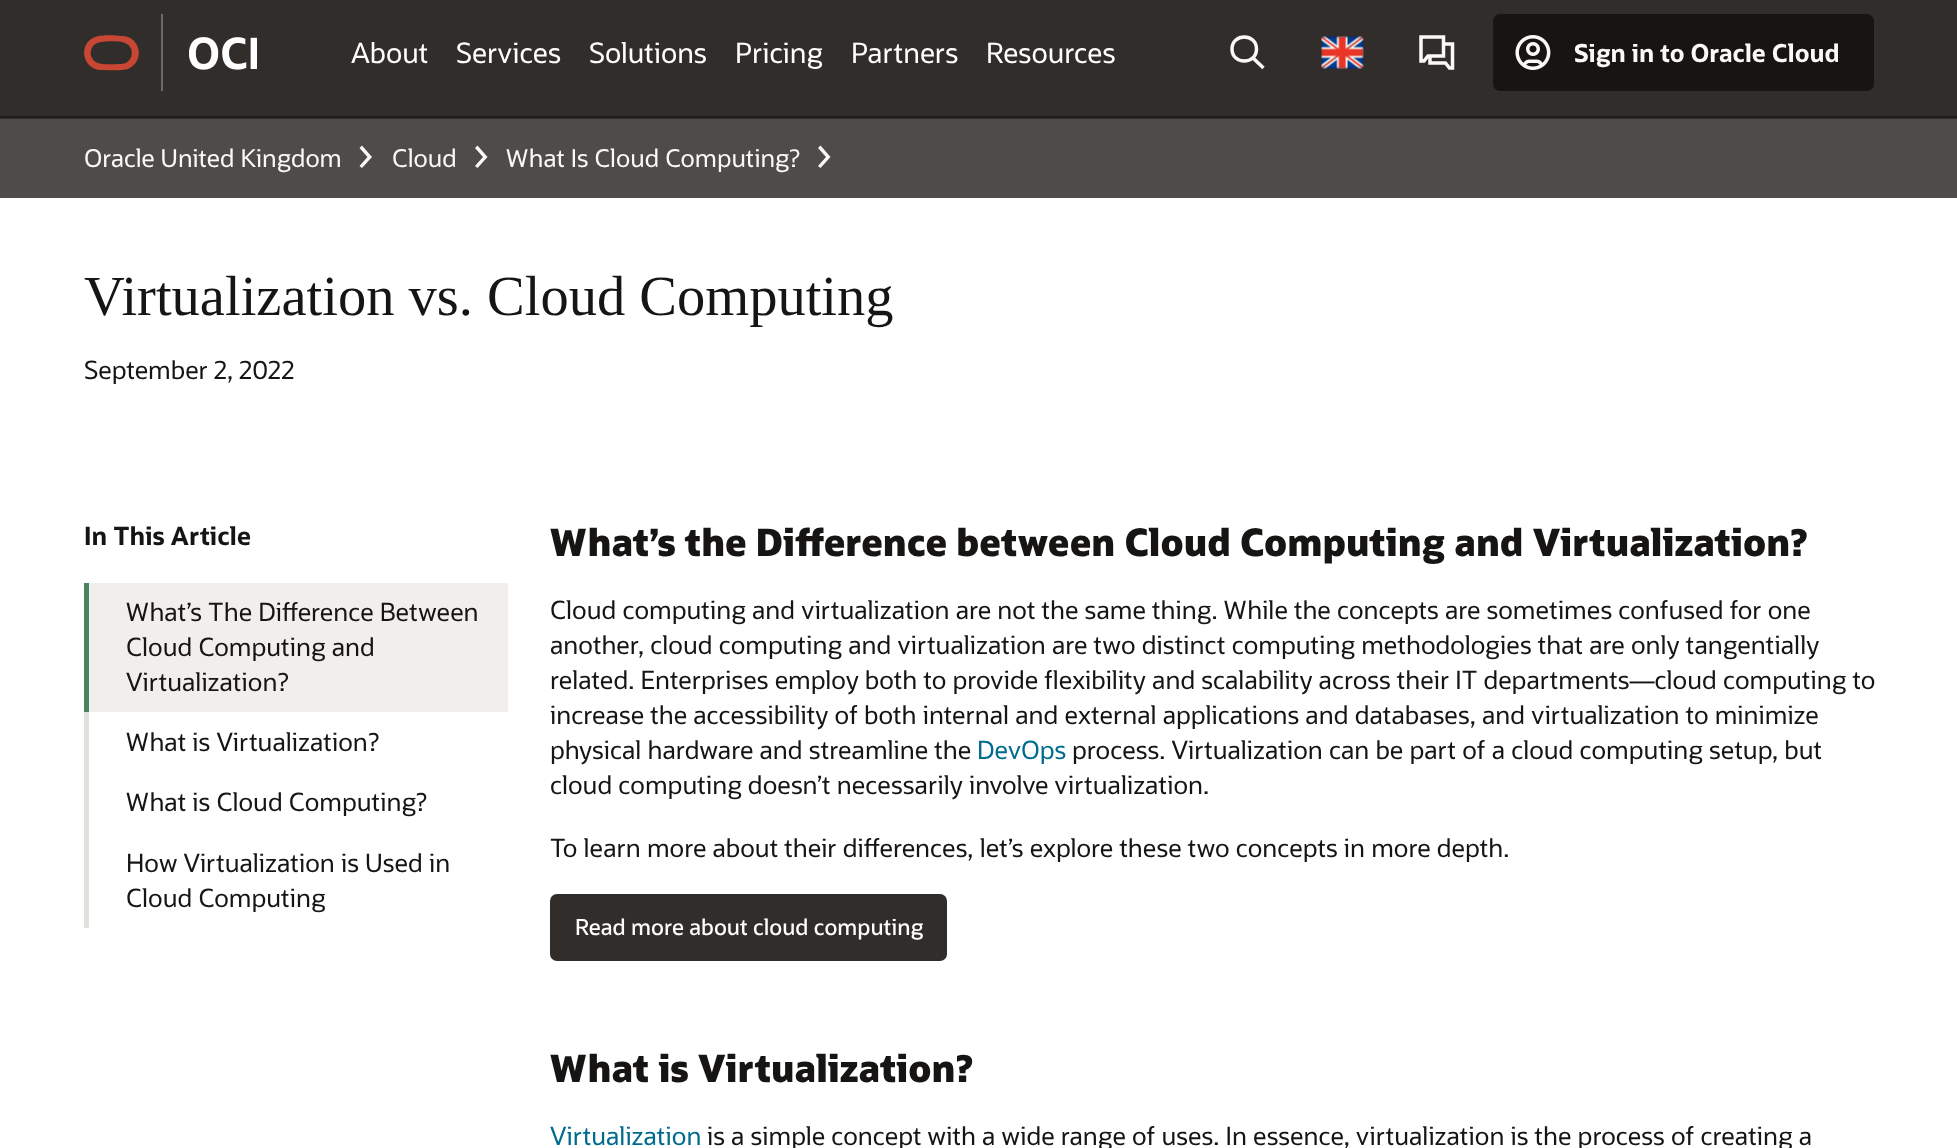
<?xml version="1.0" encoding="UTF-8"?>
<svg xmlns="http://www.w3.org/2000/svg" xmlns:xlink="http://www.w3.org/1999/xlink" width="1957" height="1148">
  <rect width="100%" height="100%" fill="#ffffff" />
  <rect width="1957" height="119" fill="#312d2a" />
  <path d="M 101 70 c -18 0 -24 -26 -6 -33 c 5 -2 20 -2 27 -1 c 18 0 24 25 6 33 c -6 2 -20 1 -27 1 m 20 -6 c 12 0 15 -17 4 -21 c -4 -2 -18 -2 -23 -1 c -12 0 -16 16 -4 21 c 4 2 17 1 23 1" fill="#c74634" />
  <rect x="161" y="14" width="2" height="77" fill="#6e6a68" />
  <image x="189" y="37" width="68" height="33" xlink:href="image1.png" />
  <path d="M 1253 58 l 10.5 10 m -7 -19 c 0 16 -24.5 16 -24.5 0 c 0 -16 24.5 -16 24.5 0 z" fill="none" stroke="#fbf9f8" stroke-width="3.5" />
  <image x="1321" y="36" width="43" height="33" xlink:href="image2.png" />
  <path d="M 1443.5 37 v 19 h -15.5 l -4 5 h -3 v -24 z m -13.5 19 v 7 h 15.5 l 4 5 h 3 v -24 h -9" fill="none" stroke="#fbf9f8" stroke-width="3.5" />
  <rect x="1493" y="14" width="381" height="77" rx="7" fill="#161513" />
  <image x="1515" y="35" width="36" height="35" xlink:href="image3.png" />
  <rect y="116" width="1957" height="2" fill="#201e1c" />
  <rect y="119" width="1957" height="79" fill="#4e4b4a" />
  <path d="M 359.5 166 l 2.5 2 l 10 -11 l -10 -11.5 l -2.5 2.5 l 8 9 z" fill="#fbf9f8" />
  <path d="M 475 166 l 2.5 2 l 10 -11 l -10 -11.5 l -2.5 2.5 l 8 9 z" fill="#fbf9f8" />
  <path d="M 818 166 l 2.5 2 l 10 -11 l -10 -11.5 l -2.5 2.5 l 8 9 z" fill="#fbf9f8" />
  <rect x="89" y="583" width="419" height="129" fill="#f1efed" />
  <rect x="84" y="583" width="5" height="129" fill="#4c825c" />
  <rect x="84" y="712" width="5" height="216" fill="#e4e1dd" />
  <rect x="550" y="894" width="397" height="67" rx="7" fill="#312d2a" />
  <text x="351" y="63" style="font-family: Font; font-size: 28px; fill: #ffffff">About</text>
  <text x="456" y="63" style="font-family: Font; font-size: 28px; fill: #ffffff">Services</text>
  <text x="589" y="63" style="font-family: Font; font-size: 28px; fill: #ffffff">Solutions</text>
  <text x="735" y="63" style="font-family: Font; font-size: 28px; fill: #ffffff">Pricing</text>
  <text x="851" y="63" style="font-family: Font; font-size: 28px; fill: #ffffff">Partners</text>
  <text x="986" y="63" style="font-family: Font; font-size: 28px; fill: #ffffff">Resources</text>
  <text x="1574" y="62" style="font-family: Font; font-size: 24.5px; font-weight: bold; fill: #fbf9f8">Sign in to Oracle Cloud</text>
  <text x="84" y="167" style="font-family: Font; font-size: 24.5px; fill: #fbf9f8">Oracle United Kingdom</text>
  <text x="392" y="167" style="font-family: Font; font-size: 24.5px; fill: #fbf9f8">Cloud</text>
  <text x="506" y="167" style="font-family: Font; font-size: 24.5px; fill: #fbf9f8">What Is Cloud Computing?</text>
  <text x="84" y="315" style="font-family: Liberation Serif; font-size: 56.5px; fill: #161513">Virtualization vs. Cloud Computing</text>
  <text x="84" y="379" style="font-family: Font; font-size: 25.1px; fill: #161513">September 2, 2022</text>
  <text x="84" y="545" style="font-family: Font; font-size: 25.1px; font-weight: bold; fill: #161513">In This Article</text>
  <text x="126" y="621" style="font-family: Font; font-size: 25.1px; fill: #161513">What’s The Difference Between</text>
  <text x="126" y="656" style="font-family: Font; font-size: 25.1px; fill: #161513">Cloud Computing and</text>
  <text x="126" y="691" style="font-family: Font; font-size: 25.1px; fill: #161513">Virtualization?</text>
  <text x="126" y="751" style="font-family: Font; font-size: 25.1px; fill: #161513">What is Virtualization?</text>
  <text x="126" y="811" style="font-family: Font; font-size: 25.1px; fill: #161513">What is Cloud Computing?</text>
  <text x="126" y="872" style="font-family: Font; font-size: 25.1px; fill: #161513">How Virtualization is Used in</text>
  <text x="126" y="907" style="font-family: Font; font-size: 25.1px; fill: #161513">Cloud Computing</text>
  <text x="550" y="556" style="font-family: Font; font-size: 37.65px; font-weight: 800; fill: #161513">What’s the Difference between Cloud Computing and Virtualization?</text>
  <text x="550" y="619" style="font-family: Font; font-size: 25.1px; fill: #161513">Cloud computing and virtualization are not the same thing. While the concepts are sometimes confused for one</text>
  <text x="550" y="654" style="font-family: Font; font-size: 25.1px; fill: #161513">another, cloud computing and virtualization are two distinct computing methodologies that are only tangentially</text>
  <text x="550" y="689" style="font-family: Font; font-size: 25.1px; fill: #161513">related. Enterprises employ both to provide flexibility and scalability across their IT departments—cloud computing to</text>
  <text x="550" y="724" style="font-family: Font; font-size: 25.1px; fill: #161513">increase the accessibility of both internal and external applications and databases, and virtualization to minimize</text>
  <text x="550" y="759" style="font-family: Font; font-size: 25.1px; fill: #161513">physical hardware and streamline the</text>
  <text x="977" y="759" style="font-family: Font; font-size: 25.1px; fill: #006b8f">DevOps</text>
  <text x="1072" y="759" style="font-family: Font; font-size: 25.1px; fill: #161513">process. Virtualization can be part of a cloud computing setup, but</text>
  <text x="550" y="794" style="font-family: Font; font-size: 25.1px; fill: #161513">cloud computing doesn’t necessarily involve virtualization.</text>
  <text x="550" y="857" style="font-family: Font; font-size: 25.1px; fill: #161513">To learn more about their differences, let’s explore these two concepts in more depth.</text>
  <text x="575" y="935" style="font-family: Font; font-size: 22px; font-weight: 500; fill: #ffffff">Read more about cloud computing</text>
  <text x="550" y="1082" style="font-family: Font; font-size: 37.65px; font-weight: 800; fill: #161513">What is Virtualization?</text>
  <text x="550" y="1145" style="font-family: Font; font-size: 25.1px; fill: #006b8f">Virtualization</text>
  <text x="707" y="1145" style="font-family: Font; font-size: 25.1px; fill: #161513">is a simple concept with a wide range of uses. In essence, virtualization is the process of creating a</text>
</svg>
